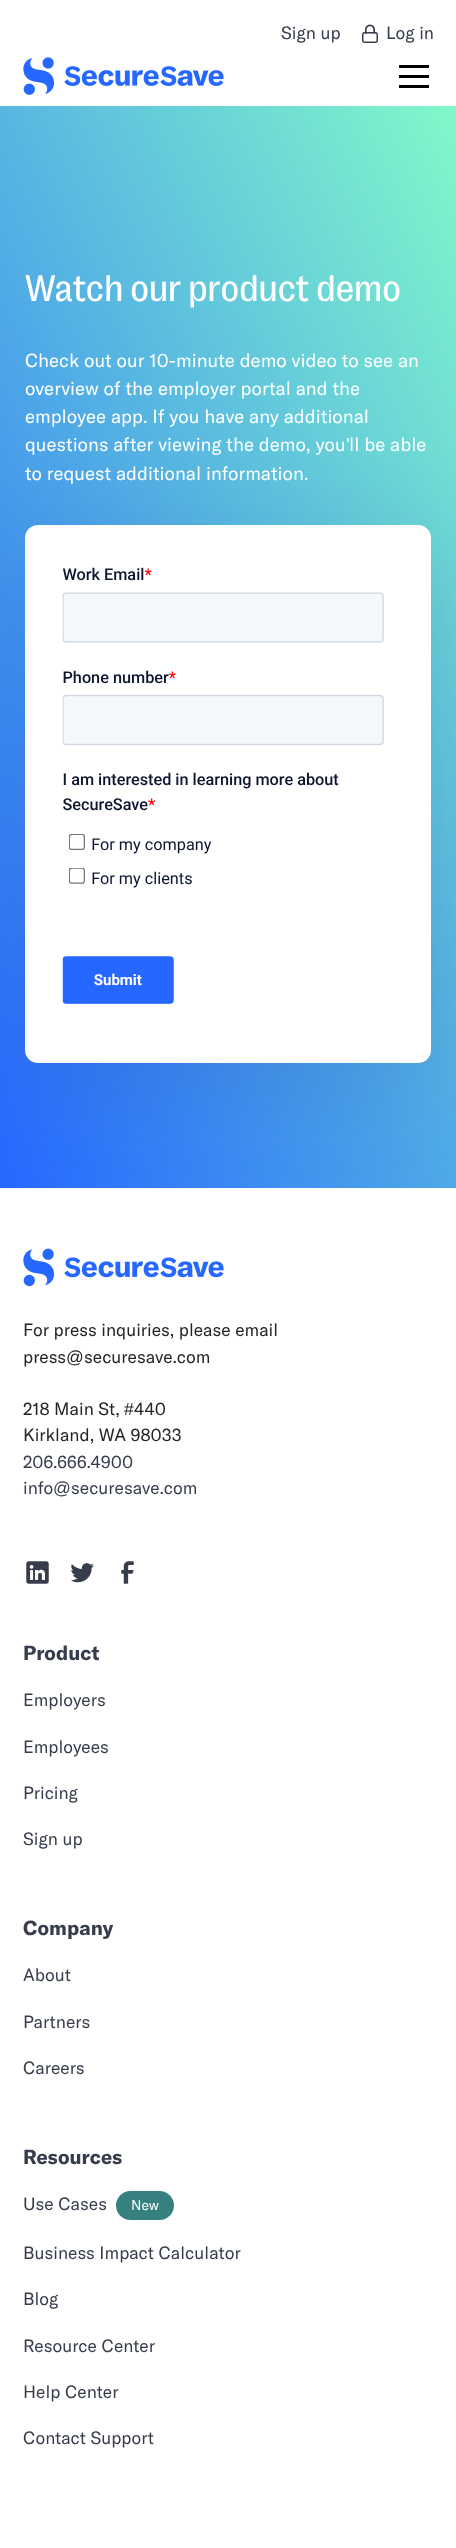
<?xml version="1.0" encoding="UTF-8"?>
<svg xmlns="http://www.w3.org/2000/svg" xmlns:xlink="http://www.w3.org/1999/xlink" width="456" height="2548">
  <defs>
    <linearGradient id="g1" gradientUnits="userSpaceOnUse" x1="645" y1="391" x2="-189" y2="816"><stop offset="0" stop-color="#85ffc7" /><stop offset="1" stop-color="#2667ff" /></linearGradient>
  </defs>
  <rect width="100%" height="100%" fill="#ffffff" />
  <image x="362" y="24" width="16" height="19" xlink:href="image1.png" />
  <image x="23" y="57" width="201" height="38" xlink:href="image2.png" />
  <rect x="399" y="65" width="30" height="3" fill="#000000" />
  <rect x="399" y="75" width="30" height="3" fill="#000000" />
  <rect x="399" y="85" width="30" height="3" fill="#000000" />
  <rect y="106" width="456" height="1082" fill="url(#g1)" />
  <rect x="25" y="548" width="406" height="537" rx="13" fill="#0a0066" fill-opacity="0.1" filter="blur(47px)" />
  <rect x="25" y="525" width="406" height="538" rx="13" fill="#ffffff" />
  <image x="62" y="567" width="322" height="437" xlink:href="image3.png" />
  <image x="23" y="1248" width="201" height="39" xlink:href="image4.png" />
  <image x="26" y="1561" width="23" height="23" xlink:href="image5.png" />
  <image x="71" y="1563" width="23" height="20" xlink:href="image6.png" />
  <image x="121" y="1561" width="13" height="23" xlink:href="image7.png" />
  <rect x="116" y="2191" width="58" height="29" rx="14.5" fill="#36817f" />
  <text x="281" y="39" style="font-family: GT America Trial; font-size: 17.5px; fill: #373d4c">Sign up</text>
  <text x="386" y="39" style="font-family: GT America Trial; font-size: 17.5px; fill: #373d4c">Log in</text>
  <text x="25" y="301" style="font-family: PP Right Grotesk; font-size: 37.5px; fill: #ffffff">Watch our product demo</text>
  <text x="25" y="367" style="font-family: GT America Trial; font-size: 18.75px; fill: #ffffff">Check out our 10-minute demo video to see an</text>
  <text x="25" y="395" style="font-family: GT America Trial; font-size: 18.75px; fill: #ffffff">overview of the employer portal and the</text>
  <text x="25" y="423" style="font-family: GT America Trial; font-size: 18.75px; fill: #ffffff">employee app. If you have any additional</text>
  <text x="25" y="451" style="font-family: GT America Trial; font-size: 18.75px; fill: #ffffff">questions after viewing the demo, you</text>
  <text x="346" y="451" style="font-family: Liberation Sans; font-size: 18.75px; fill: #ffffff">'</text>
  <text x="349" y="451" style="font-family: GT America Trial; font-size: 18.75px; fill: #ffffff">ll be able</text>
  <text x="25" y="480" style="font-family: GT America Trial; font-size: 18.75px; fill: #ffffff">to request additional information.</text>
  <text x="23" y="1336" style="font-family: GT America Trial; font-size: 17.5px; fill: #252525">For press inquiries, please email</text>
  <text x="23" y="1363" style="font-family: GT America Trial; font-size: 17.5px; fill: #252525">press</text>
  <text x="66" y="1363" style="font-family: Liberation Sans; font-size: 17.5px; fill: #252525">@</text>
  <text x="84" y="1363" style="font-family: GT America Trial; font-size: 17.5px; fill: #252525">securesave.com</text>
  <text x="23" y="1415" style="font-family: GT America Trial; font-size: 17.5px; fill: #252525">218 Main St,</text>
  <text x="124" y="1415" style="font-family: Liberation Sans; font-size: 17.5px; fill: #252525">#</text>
  <text x="134" y="1415" style="font-family: GT America Trial; font-size: 17.5px; fill: #252525">440</text>
  <text x="23" y="1441" style="font-family: GT America Trial; font-size: 17.5px; fill: #252525">Kirkland, WA 98033</text>
  <text x="23" y="1468" style="font-family: GT America Trial; font-size: 17.5px; fill: #373d4c">206.666.4900</text>
  <text x="23" y="1494" style="font-family: GT America Trial; font-size: 17.5px; fill: #373d4c">info</text>
  <text x="53" y="1494" style="font-family: Liberation Sans; font-size: 17.5px; fill: #373d4c">@</text>
  <text x="71" y="1494" style="font-family: GT America Trial; font-size: 17.5px; fill: #373d4c">securesave.com</text>
  <text x="23" y="1660" style="font-family: GT America Trial; font-size: 20px; font-weight: bold; fill: #373d4c">Product</text>
  <text x="23" y="1706" style="font-family: GT America Trial; font-size: 17.5px; fill: #373d4c">Employers</text>
  <text x="23" y="1753" style="font-family: GT America Trial; font-size: 17.5px; fill: #373d4c">Employees</text>
  <text x="23" y="1799" style="font-family: GT America Trial; font-size: 17.5px; fill: #373d4c">Pricing</text>
  <text x="23" y="1845" style="font-family: GT America Trial; font-size: 17.5px; fill: #373d4c">Sign up</text>
  <text x="23" y="1935" style="font-family: GT America Trial; font-size: 20px; font-weight: bold; fill: #373d4c">Company</text>
  <text x="23" y="1981" style="font-family: GT America Trial; font-size: 17.5px; fill: #373d4c">About</text>
  <text x="23" y="2028" style="font-family: GT America Trial; font-size: 17.5px; fill: #373d4c">Partners</text>
  <text x="23" y="2074" style="font-family: GT America Trial; font-size: 17.5px; fill: #373d4c">Careers</text>
  <text x="23" y="2164" style="font-family: GT America Trial; font-size: 20px; font-weight: bold; fill: #373d4c">Resources</text>
  <text x="23" y="2210" style="font-family: GT America Trial; font-size: 17.5px; fill: #373d4c">Use Cases</text>
  <text x="131" y="2210" style="font-family: GT America Trial; font-size: 14px; fill: #ffffff">New</text>
  <text x="23" y="2259" style="font-family: GT America Trial; font-size: 17.5px; fill: #373d4c">Business Impact Calculator</text>
  <text x="23" y="2305" style="font-family: GT America Trial; font-size: 17.5px; fill: #373d4c">Blog</text>
  <text x="23" y="2352" style="font-family: GT America Trial; font-size: 17.5px; fill: #373d4c">Resource Center</text>
  <text x="23" y="2398" style="font-family: GT America Trial; font-size: 17.5px; fill: #373d4c">Help Center</text>
  <text x="23" y="2444" style="font-family: GT America Trial; font-size: 17.5px; fill: #373d4c">Contact Support</text>
</svg>
